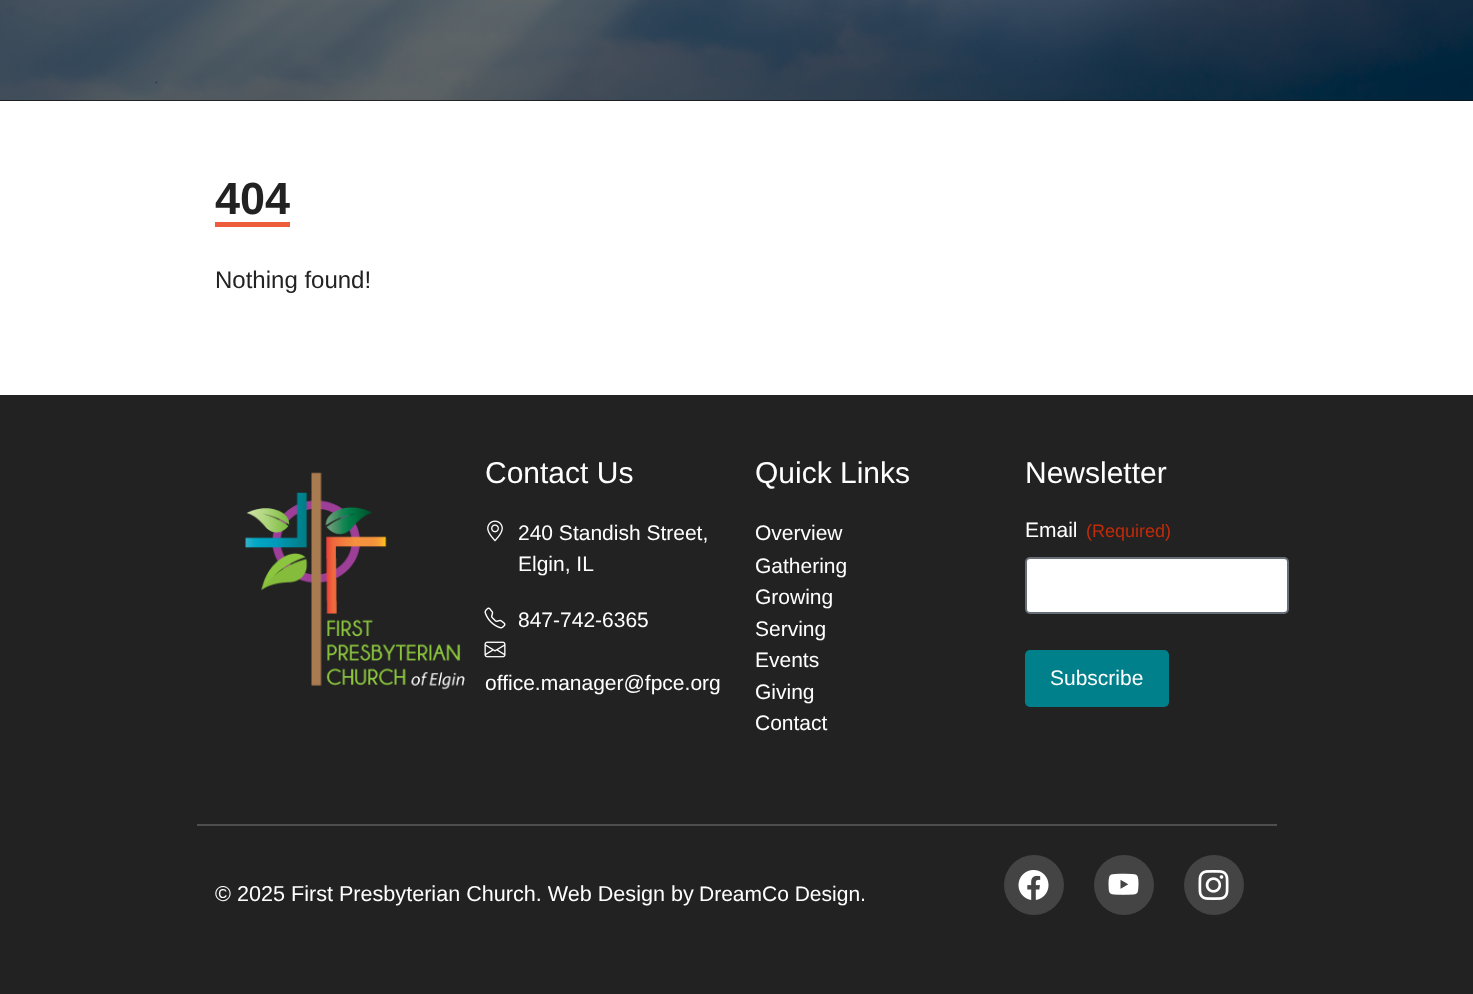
<?xml version="1.0" encoding="UTF-8"?>
<svg xmlns="http://www.w3.org/2000/svg" xmlns:xlink="http://www.w3.org/1999/xlink" width="1473" height="994">
  <rect width="100%" height="100%" fill="#ffffff" />
  <rect y="100" width="1473" height="1" fill="#111111" />
  <image x="0" y="0" width="1473" height="101" xlink:href="image1.png" />
  <rect x="215" y="222" width="75" height="5" fill="#ed5d3b" />
  <rect y="395" width="1473" height="599" fill="#222222" />
  <rect x="197" y="824" width="1080" height="2" fill="#4e4e4e" />
  <image x="245" y="472" width="220" height="218" xlink:href="image2.png" />
  <image x="487" y="520" width="16" height="22" xlink:href="image3.png" />
  <image x="484" y="607" width="22" height="22" xlink:href="image4.png" />
  <image x="484" y="641" width="22" height="17" xlink:href="image5.png" />
  <rect x="1026" y="558" width="262" height="55" rx="4" fill="#ffffff" stroke="#686e77" stroke-width="2" />
  <rect x="1025" y="650" width="144" height="57" rx="5" fill="#00808b" />
  <circle cx="1034" cy="885" r="30" fill="#444444" />
  <image x="1018" y="870" width="31" height="30" xlink:href="image6.png" />
  <circle cx="1124" cy="885" r="30" fill="#444444" />
  <image x="1108" y="873" width="31" height="22" xlink:href="image7.png" />
  <circle cx="1214" cy="885" r="30" fill="#444444" />
  <image x="1198" y="870" width="31" height="30" xlink:href="image8.png" />
  <text x="215" y="214" style="font-family: Liberation Sans; font-size: 45px; font-weight: bold; fill: #222222">404</text>
  <text x="215" y="288" style="font-family: Liberation Sans; font-size: 24px; fill: #222222">Nothing found!</text>
  <text x="485" y="483" style="font-family: Liberation Sans; font-size: 30px; fill: #ffffff">Contact Us</text>
  <text x="518" y="540" style="font-family: Liberation Sans; font-size: 21px; fill: #ffffff">240 Standish Street,</text>
  <text x="518" y="571" style="font-family: Liberation Sans; font-size: 21px; fill: #ffffff">Elgin, IL</text>
  <text x="518" y="627" style="font-family: Liberation Sans; font-size: 21px; fill: #ffffff">847-742-6365</text>
  <text x="485" y="690" style="font-family: Liberation Sans; font-size: 21px; fill: #ffffff">office.manager@fpce.org</text>
  <text x="755" y="483" style="font-family: Liberation Sans; font-size: 30px; fill: #ffffff">Quick Links</text>
  <text x="755" y="540" style="font-family: Liberation Sans; font-size: 21px; fill: #ffffff">Overview</text>
  <text x="755" y="573" style="font-family: Liberation Sans; font-size: 21px; fill: #ffffff">Gathering</text>
  <text x="755" y="604" style="font-family: Liberation Sans; font-size: 21px; fill: #ffffff">Growing</text>
  <text x="755" y="636" style="font-family: Liberation Sans; font-size: 21px; fill: #ffffff">Serving</text>
  <text x="755" y="667" style="font-family: Liberation Sans; font-size: 21px; fill: #ffffff">Events</text>
  <text x="755" y="699" style="font-family: Liberation Sans; font-size: 21px; fill: #ffffff">Giving</text>
  <text x="755" y="730" style="font-family: Liberation Sans; font-size: 21px; fill: #ffffff">Contact</text>
  <text x="1025" y="483" style="font-family: Liberation Sans; font-size: 30px; fill: #ffffff">Newsletter</text>
  <text x="1025" y="537" style="font-family: Liberation Sans; font-size: 21px; fill: #ffffff">Email</text>
  <text x="1086" y="537" style="font-family: Liberation Sans; font-size: 18px; fill: #c02b0a">(Required)</text>
  <text x="1050" y="685" style="font-family: Liberation Sans; font-size: 21px; fill: #ffffff">Subscribe</text>
  <text x="215" y="901" style="font-family: Liberation Sans; font-size: 21.6px; fill: #ffffff">© 2025 First Presbyterian Church. Web Design by</text>
  <text x="699" y="901" style="font-family: Liberation Sans; font-size: 21px; fill: #ffffff">DreamCo Design</text>
  <text x="860" y="901" style="font-family: Liberation Sans; font-size: 21.6px; fill: #ffffff">.</text>
</svg>
